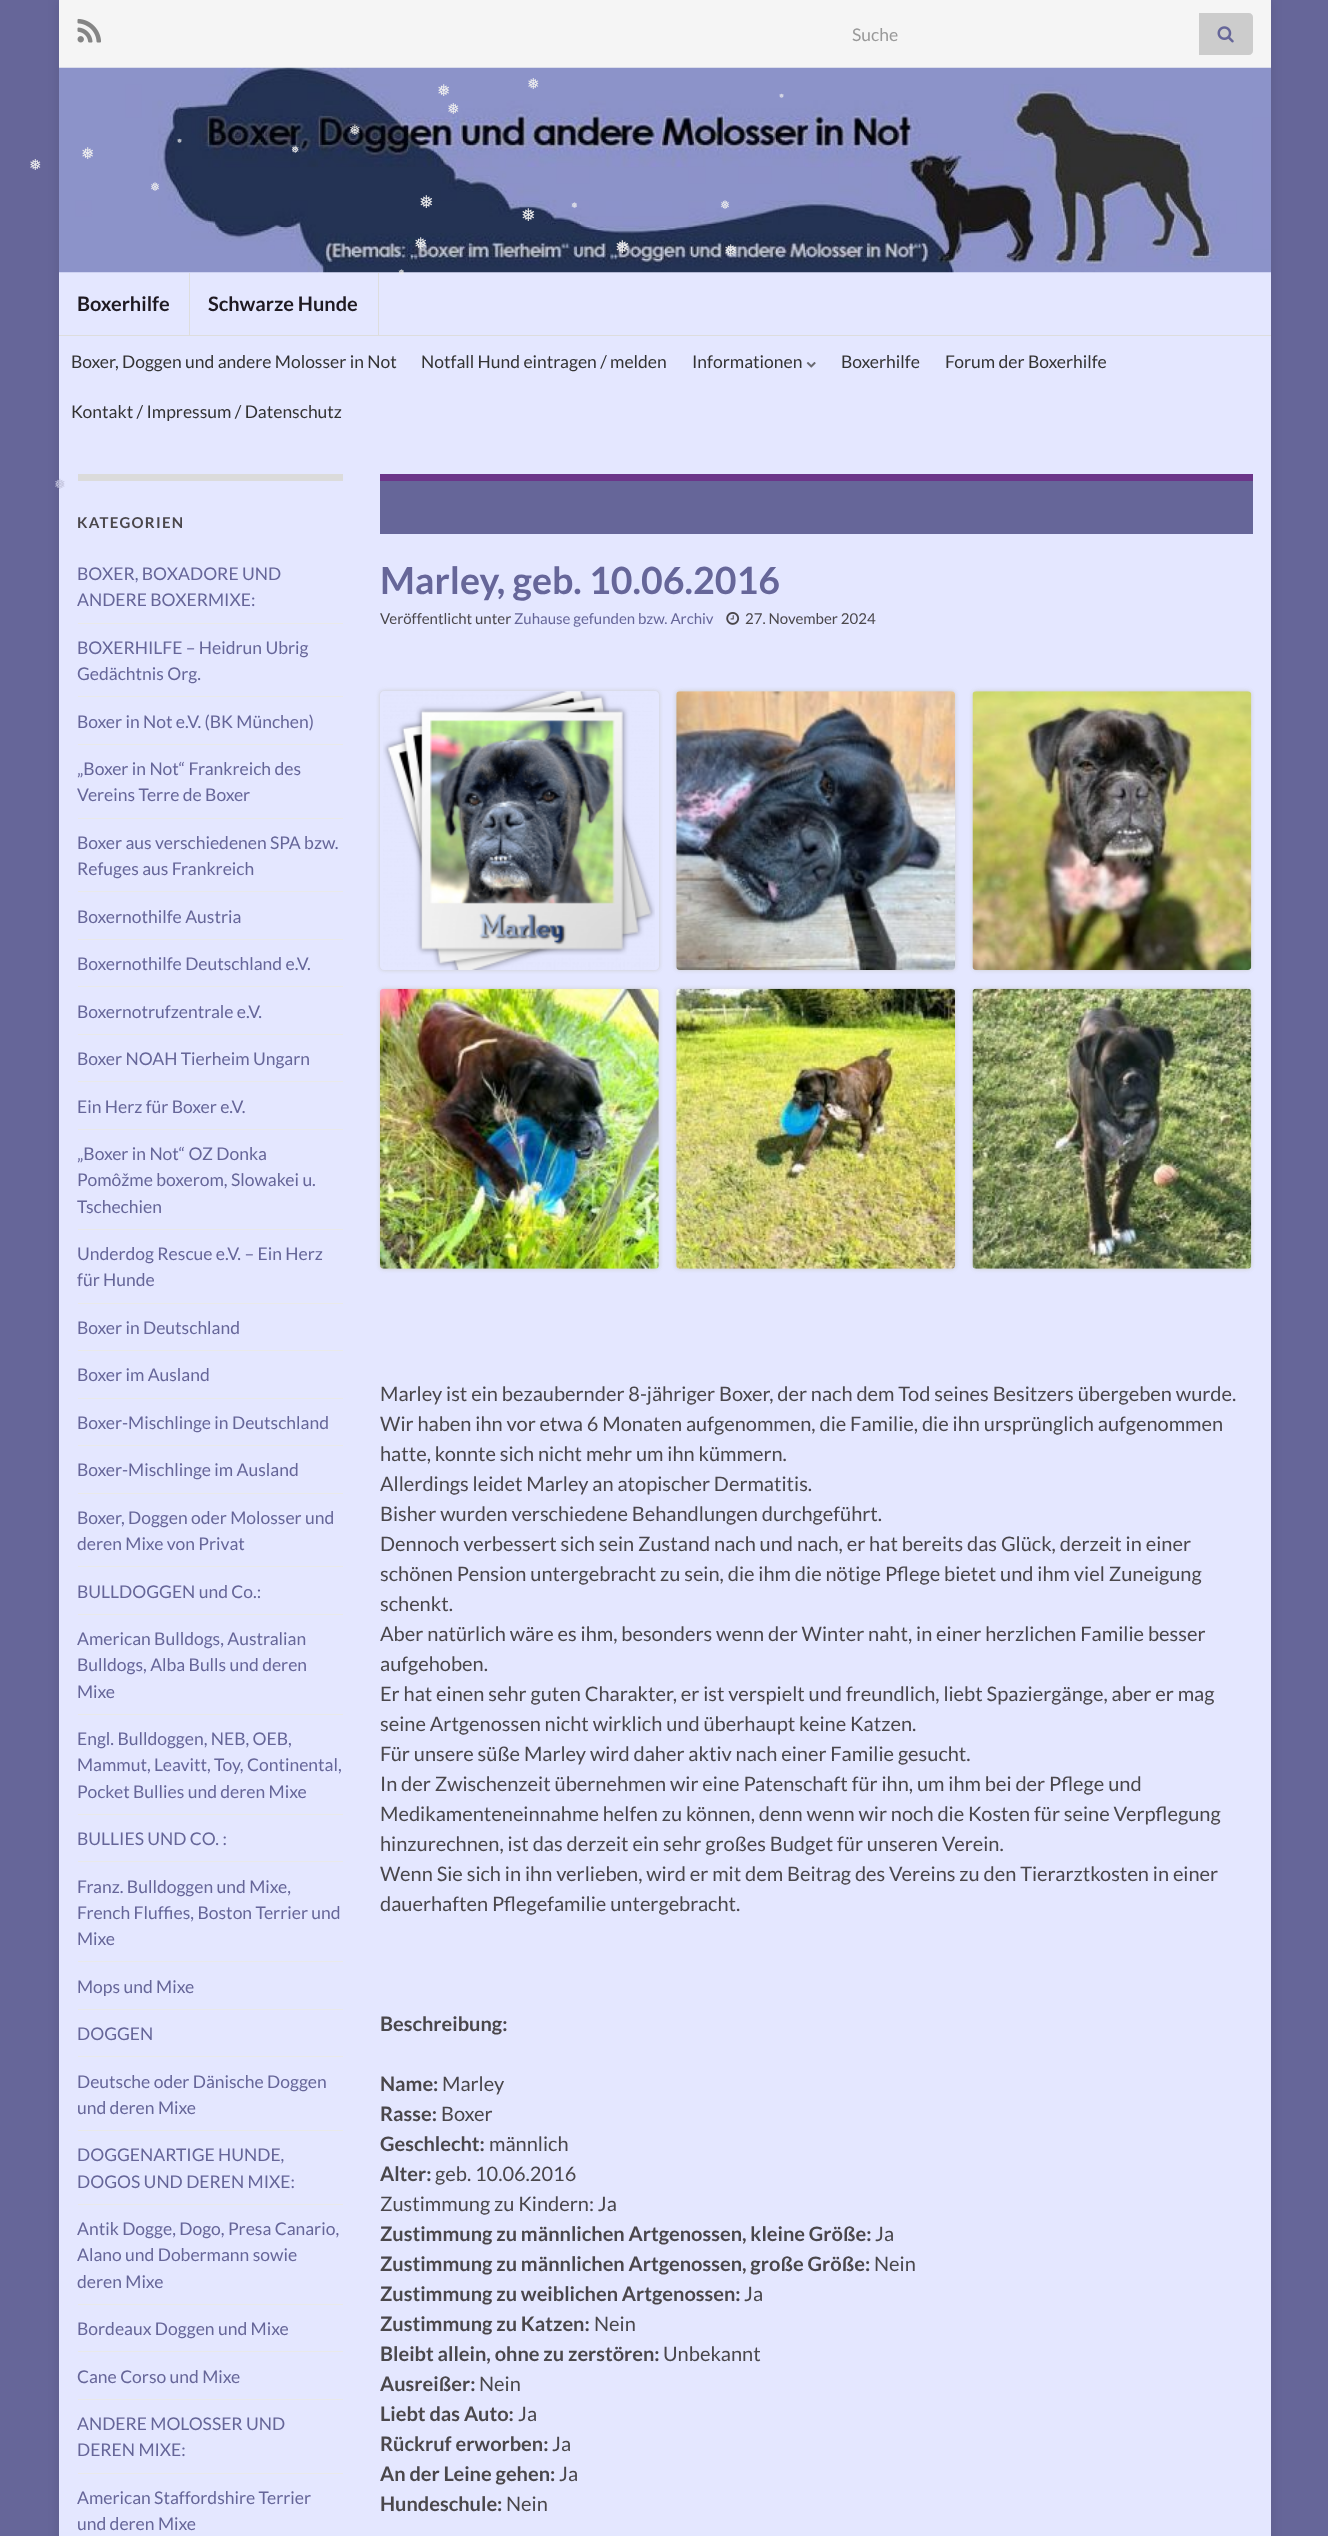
<?xml version="1.0" encoding="UTF-8"?>
<svg xmlns="http://www.w3.org/2000/svg" xmlns:xlink="http://www.w3.org/1999/xlink" width="1328" height="2536">
  <defs>
    <clipPath id="clip1"><path d="M 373 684 h 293 v 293 h -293 z m 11 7 h 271 c 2 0 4 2 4 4 v 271 c 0 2 -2 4 -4 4 h -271 c -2 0 -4 -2 -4 -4 v -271 c 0 -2 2 -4 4 -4 z" clip-rule="evenodd" /></clipPath>
  </defs>
  <rect width="100%" height="100%" fill="#666699" />
  <rect x="59" width="1212" height="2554" fill="#000000" fill-opacity="0.1" filter="blur(6px)" />
  <rect x="59" width="1212" height="68" fill="#f5f5f5" />
  <image x="77" y="18" width="24" height="25" xlink:href="image1.png" />
  <path d="M 1199 13 h 50 c 2 0 4 2 4 4 v 34 c 0 2 -2 4 -4 4 h -50 z" fill="#cccccc" />
  <image x="1217" y="26" width="17" height="17" xlink:href="image2.png" />
  <rect x="59" y="272" width="1212" height="164" fill="#e4e7ff" />
  <image x="59" y="67" width="1212" height="206" xlink:href="image3.png" />
  <rect x="189" y="273" width="1" height="62" fill="#dddddd" />
  <rect x="378" y="273" width="1" height="62" fill="#dddddd" />
  <rect x="59" y="335" width="1212" height="1" fill="#dddddd" />
  <image x="806" y="362" width="10" height="6" xlink:href="image4.png" />
  <rect x="59" y="436" width="1212" height="2100" fill="#e4e7ff" />
  <rect x="78" y="474" width="265" height="7" fill="#dbdbdb" />
  <rect x="78" y="623" width="265" height="1" fill="#e9e9e9" />
  <rect x="78" y="696" width="265" height="1" fill="#e9e9e9" />
  <rect x="78" y="744" width="265" height="1" fill="#e9e9e9" />
  <rect x="78" y="818" width="265" height="1" fill="#e9e9e9" />
  <rect x="78" y="891" width="265" height="1" fill="#e9e9e9" />
  <rect x="78" y="939" width="265" height="1" fill="#e9e9e9" />
  <rect x="78" y="986" width="265" height="1" fill="#e9e9e9" />
  <rect x="78" y="1034" width="265" height="1" fill="#e9e9e9" />
  <rect x="78" y="1081" width="265" height="1" fill="#e9e9e9" />
  <rect x="78" y="1129" width="265" height="1" fill="#e9e9e9" />
  <rect x="78" y="1229" width="265" height="1" fill="#e9e9e9" />
  <rect x="78" y="1303" width="265" height="1" fill="#e9e9e9" />
  <rect x="78" y="1350" width="265" height="1" fill="#e9e9e9" />
  <rect x="78" y="1398" width="265" height="1" fill="#e9e9e9" />
  <rect x="78" y="1445" width="265" height="1" fill="#e9e9e9" />
  <rect x="78" y="1493" width="265" height="1" fill="#e9e9e9" />
  <rect x="78" y="1566" width="265" height="1" fill="#e9e9e9" />
  <rect x="78" y="1614" width="265" height="1" fill="#e9e9e9" />
  <rect x="78" y="1714" width="265" height="1" fill="#e9e9e9" />
  <rect x="78" y="1814" width="265" height="1" fill="#e9e9e9" />
  <rect x="78" y="1861" width="265" height="1" fill="#e9e9e9" />
  <rect x="78" y="1961" width="265" height="1" fill="#e9e9e9" />
  <rect x="78" y="2009" width="265" height="1" fill="#e9e9e9" />
  <rect x="78" y="2056" width="265" height="1" fill="#e9e9e9" />
  <rect x="78" y="2130" width="265" height="1" fill="#e9e9e9" />
  <rect x="78" y="2204" width="265" height="1" fill="#e9e9e9" />
  <rect x="78" y="2304" width="265" height="1" fill="#e9e9e9" />
  <rect x="78" y="2351" width="265" height="1" fill="#e9e9e9" />
  <rect x="78" y="2399" width="265" height="1" fill="#e9e9e9" />
  <rect x="78" y="2473" width="265" height="1" fill="#e9e9e9" />
  <rect x="380" y="481" width="873" height="53" fill="#666699" />
  <rect x="380" y="474" width="873" height="7" fill="#6b3589" />
  <image x="726" y="612" width="14" height="13" xlink:href="image5.png" />
  <g clip-path="url(#clip1)">
    <rect x="380" y="691" width="279" height="279" rx="4" fill="#cccccc" filter="blur(2px)" />
  </g>
  <image x="383" y="691" width="272" height="279" xlink:href="image6.png" />
  <rect x="676" y="691" width="279" height="279" rx="4" fill="#cccccc" filter="blur(2px)" />
  <image x="676" y="691" width="279" height="279" xlink:href="image7.png" />
  <rect x="973" y="691" width="278" height="279" rx="4" fill="#cccccc" filter="blur(2px)" />
  <image x="972" y="691" width="280" height="279" xlink:href="image8.png" />
  <rect x="380" y="989" width="279" height="280" rx="4" fill="#cccccc" filter="blur(2px)" />
  <image x="380" y="988" width="279" height="281" xlink:href="image9.png" />
  <rect x="676" y="989" width="279" height="280" rx="4" fill="#cccccc" filter="blur(2px)" />
  <image x="676" y="988" width="279" height="281" xlink:href="image10.png" />
  <rect x="973" y="989" width="278" height="280" rx="4" fill="#cccccc" filter="blur(2px)" />
  <image x="972" y="988" width="280" height="281" xlink:href="image11.png" />
  <text x="852" y="41" style="font-family: Lato; font-size: 17.5px; fill: #999999">Suche</text>
  <text x="77" y="311" style="font-family: Lato; font-size: 20px; font-weight: bold; fill: #1f1a22">Boxerhilfe</text>
  <text x="208" y="311" style="font-family: Lato; font-size: 20px; font-weight: bold; fill: #1f1a22">Schwarze Hunde</text>
  <text x="71" y="368" style="font-family: Lato; font-size: 17.5px; fill: #333333">Boxer, Doggen und andere Molosser in Not</text>
  <text x="421" y="368" style="font-family: Lato; font-size: 17.5px; fill: #333333">Notfall Hund eintragen / melden</text>
  <text x="692" y="368" style="font-family: Lato; font-size: 17.5px; fill: #333333">Informationen</text>
  <text x="841" y="368" style="font-family: Lato; font-size: 17.5px; fill: #333333">Boxerhilfe</text>
  <text x="945" y="368" style="font-family: Lato; font-size: 17.5px; fill: #333333">Forum der Boxerhilfe</text>
  <text x="71" y="418" style="font-family: Lato; font-size: 17.5px; fill: #333333">Kontakt / Impressum / Datenschutz</text>
  <text x="77" y="528" style="font-family: Lato; font-size: 15px; font-weight: bold; letter-spacing: 1.25px; fill: #4a474b">KATEGORIEN</text>
  <text x="77" y="580" style="font-family: Lato; font-size: 17.5px; fill: #666699">BOXER, BOXADORE UND</text>
  <text x="77" y="606" style="font-family: Lato; font-size: 17.5px; fill: #666699">ANDERE BOXERMIXE:</text>
  <text x="77" y="654" style="font-family: Lato; font-size: 17.5px; fill: #666699">BOXERHILFE – Heidrun Ubrig</text>
  <text x="77" y="680" style="font-family: Lato; font-size: 17.5px; fill: #666699">Gedächtnis Org.</text>
  <text x="77" y="728" style="font-family: Lato; font-size: 17.5px; fill: #666699">Boxer in Not e.V. (BK München)</text>
  <text x="77" y="775" style="font-family: Lato; font-size: 17.5px; fill: #666699">„Boxer in Not“ Frankreich des</text>
  <text x="77" y="801" style="font-family: Lato; font-size: 17.5px; fill: #666699">Vereins Terre de Boxer</text>
  <text x="77" y="849" style="font-family: Lato; font-size: 17.5px; fill: #666699">Boxer aus verschiedenen SPA bzw.</text>
  <text x="77" y="875" style="font-family: Lato; font-size: 17.5px; fill: #666699">Refuges aus Frankreich</text>
  <text x="77" y="923" style="font-family: Lato; font-size: 17.5px; fill: #666699">Boxernothilfe Austria</text>
  <text x="77" y="970" style="font-family: Lato; font-size: 17.5px; fill: #666699">Boxernothilfe Deutschland e.V.</text>
  <text x="77" y="1018" style="font-family: Lato; font-size: 17.5px; fill: #666699">Boxernotrufzentrale e.V.</text>
  <text x="77" y="1065" style="font-family: Lato; font-size: 17.5px; fill: #666699">Boxer NOAH Tierheim Ungarn</text>
  <text x="77" y="1113" style="font-family: Lato; font-size: 17.5px; fill: #666699">Ein Herz für Boxer e.V.</text>
  <text x="77" y="1160" style="font-family: Lato; font-size: 17.5px; fill: #666699">„Boxer in Not“ OZ Donka</text>
  <text x="77" y="1186" style="font-family: Lato; font-size: 17.5px; fill: #666699">Pomôžme boxerom, Slowakei u.</text>
  <text x="77" y="1213" style="font-family: Lato; font-size: 17.5px; fill: #666699">Tschechien</text>
  <text x="77" y="1260" style="font-family: Lato; font-size: 17.5px; fill: #666699">Underdog Rescue e.V. – Ein Herz</text>
  <text x="77" y="1286" style="font-family: Lato; font-size: 17.5px; fill: #666699">für Hunde</text>
  <text x="77" y="1334" style="font-family: Lato; font-size: 17.5px; fill: #666699">Boxer in Deutschland</text>
  <text x="77" y="1381" style="font-family: Lato; font-size: 17.5px; fill: #666699">Boxer im Ausland</text>
  <text x="77" y="1429" style="font-family: Lato; font-size: 17.5px; fill: #666699">Boxer-Mischlinge in Deutschland</text>
  <text x="77" y="1476" style="font-family: Lato; font-size: 17.5px; fill: #666699">Boxer-Mischlinge im Ausland</text>
  <text x="77" y="1524" style="font-family: Lato; font-size: 17.5px; fill: #666699">Boxer, Doggen oder Molosser und</text>
  <text x="77" y="1550" style="font-family: Lato; font-size: 17.5px; fill: #666699">deren Mixe von Privat</text>
  <text x="77" y="1598" style="font-family: Lato; font-size: 17.5px; fill: #666699">BULLDOGGEN und Co.:</text>
  <text x="77" y="1645" style="font-family: Lato; font-size: 17.5px; fill: #666699">American Bulldogs, Australian</text>
  <text x="77" y="1671" style="font-family: Lato; font-size: 17.5px; fill: #666699">Bulldogs, Alba Bulls und deren</text>
  <text x="77" y="1698" style="font-family: Lato; font-size: 17.5px; fill: #666699">Mixe</text>
  <text x="77" y="1745" style="font-family: Lato; font-size: 17.5px; fill: #666699">Engl. Bulldoggen, NEB, OEB,</text>
  <text x="77" y="1771" style="font-family: Lato; font-size: 17.5px; fill: #666699">Mammut, Leavitt, Toy, Continental,</text>
  <text x="77" y="1798" style="font-family: Lato; font-size: 17.5px; fill: #666699">Pocket Bullies und deren Mixe</text>
  <text x="77" y="1845" style="font-family: Lato; font-size: 17.5px; fill: #666699">BULLIES UND CO. :</text>
  <text x="77" y="1893" style="font-family: Lato; font-size: 17.5px; fill: #666699">Franz. Bulldoggen und Mixe,</text>
  <text x="77" y="1919" style="font-family: Lato; font-size: 17.5px; fill: #666699">French Fluffies, Boston Terrier und</text>
  <text x="77" y="1945" style="font-family: Lato; font-size: 17.5px; fill: #666699">Mixe</text>
  <text x="77" y="1993" style="font-family: Lato; font-size: 17.5px; fill: #666699">Mops und Mixe</text>
  <text x="77" y="2040" style="font-family: Lato; font-size: 17.5px; fill: #666699">DOGGEN</text>
  <text x="77" y="2088" style="font-family: Lato; font-size: 17.5px; fill: #666699">Deutsche oder Dänische Doggen</text>
  <text x="77" y="2114" style="font-family: Lato; font-size: 17.5px; fill: #666699">und deren Mixe</text>
  <text x="77" y="2161" style="font-family: Lato; font-size: 17.5px; fill: #666699">DOGGENARTIGE HUNDE,</text>
  <text x="77" y="2188" style="font-family: Lato; font-size: 17.5px; fill: #666699">DOGOS UND DEREN MIXE:</text>
  <text x="77" y="2235" style="font-family: Lato; font-size: 17.5px; fill: #666699">Antik Dogge, Dogo, Presa Canario,</text>
  <text x="77" y="2261" style="font-family: Lato; font-size: 17.5px; fill: #666699">Alano und Dobermann sowie</text>
  <text x="77" y="2288" style="font-family: Lato; font-size: 17.5px; fill: #666699">deren Mixe</text>
  <text x="77" y="2335" style="font-family: Lato; font-size: 17.5px; fill: #666699">Bordeaux Doggen und Mixe</text>
  <text x="77" y="2383" style="font-family: Lato; font-size: 17.5px; fill: #666699">Cane Corso und Mixe</text>
  <text x="77" y="2430" style="font-family: Lato; font-size: 17.5px; fill: #666699">ANDERE MOLOSSER UND</text>
  <text x="77" y="2456" style="font-family: Lato; font-size: 17.5px; fill: #666699">DEREN MIXE:</text>
  <text x="77" y="2504" style="font-family: Lato; font-size: 17.5px; fill: #666699">American Staffordshire Terrier</text>
  <text x="77" y="2530" style="font-family: Lato; font-size: 17.5px; fill: #666699">und deren Mixe</text>
  <text x="380" y="594" style="font-family: Lato; font-size: 37.5px; font-weight: bold; fill: #666699">Marley, geb. 10.06.2016</text>
  <text x="380" y="624" style="font-family: Lato; font-size: 15px; fill: #4a474b">Veröffentlicht unter</text>
  <text x="514" y="624" style="font-family: Lato; font-size: 15px; fill: #666699">Zuhause gefunden bzw. Archiv</text>
  <text x="745" y="624" style="font-family: Lato; font-size: 15px; fill: #4a474b">27. November 2024</text>
  <text x="380" y="1401" style="font-family: Lato; font-size: 20px; fill: #4a474b">Marley ist ein bezaubernder 8-jähriger Boxer, der nach dem Tod seines Besitzers übergeben wurde.</text>
  <text x="380" y="1431" style="font-family: Lato; font-size: 20px; fill: #4a474b">Wir haben ihn vor etwa 6 Monaten aufgenommen, die Familie, die ihn ursprünglich aufgenommen</text>
  <text x="380" y="1461" style="font-family: Lato; font-size: 20px; fill: #4a474b">hatte, konnte sich nicht mehr um ihn kümmern.</text>
  <text x="380" y="1491" style="font-family: Lato; font-size: 20px; fill: #4a474b">Allerdings leidet Marley an atopischer Dermatitis.</text>
  <text x="380" y="1521" style="font-family: Lato; font-size: 20px; fill: #4a474b">Bisher wurden verschiedene Behandlungen durchgeführt.</text>
  <text x="380" y="1551" style="font-family: Lato; font-size: 20px; fill: #4a474b">Dennoch verbessert sich sein Zustand nach und nach, er hat bereits das Glück, derzeit in einer</text>
  <text x="380" y="1581" style="font-family: Lato; font-size: 20px; fill: #4a474b">schönen Pension untergebracht zu sein, die ihm die nötige Pflege bietet und ihm viel Zuneigung</text>
  <text x="380" y="1611" style="font-family: Lato; font-size: 20px; fill: #4a474b">schenkt.</text>
  <text x="380" y="1641" style="font-family: Lato; font-size: 20px; fill: #4a474b">Aber natürlich wäre es ihm, besonders wenn der Winter naht, in einer herzlichen Familie besser</text>
  <text x="380" y="1671" style="font-family: Lato; font-size: 20px; fill: #4a474b">aufgehoben.</text>
  <text x="380" y="1701" style="font-family: Lato; font-size: 20px; fill: #4a474b">Er hat einen sehr guten Charakter, er ist verspielt und freundlich, liebt Spaziergänge, aber er mag</text>
  <text x="380" y="1731" style="font-family: Lato; font-size: 20px; fill: #4a474b">seine Artgenossen nicht wirklich und überhaupt keine Katzen.</text>
  <text x="380" y="1761" style="font-family: Lato; font-size: 20px; fill: #4a474b">Für unsere süße Marley wird daher aktiv nach einer Familie gesucht.</text>
  <text x="380" y="1791" style="font-family: Lato; font-size: 20px; fill: #4a474b">In der Zwischenzeit übernehmen wir eine Patenschaft für ihn, um ihm bei der Pflege und</text>
  <text x="380" y="1821" style="font-family: Lato; font-size: 20px; fill: #4a474b">Medikamenteneinnahme helfen zu können, denn wenn wir noch die Kosten für seine Verpflegung</text>
  <text x="380" y="1851" style="font-family: Lato; font-size: 20px; fill: #4a474b">hinzurechnen, ist das derzeit ein sehr großes Budget für unseren Verein.</text>
  <text x="380" y="1881" style="font-family: Lato; font-size: 20px; fill: #4a474b">Wenn Sie sich in ihn verlieben, wird er mit dem Beitrag des Vereins zu den Tierarztkosten in einer</text>
  <text x="380" y="1911" style="font-family: Lato; font-size: 20px; fill: #4a474b">dauerhaften Pflegefamilie untergebracht.</text>
  <text x="380" y="2031" style="font-family: Lato; font-size: 20px; font-weight: bold; fill: #4a474b">Beschreibung:</text>
  <text x="380" y="2091" style="font-family: Lato; font-size: 20px; font-weight: bold; fill: #4a474b">Name:</text>
  <text x="442" y="2091" style="font-family: Lato; font-size: 20px; fill: #4a474b">Marley</text>
  <text x="380" y="2121" style="font-family: Lato; font-size: 20px; font-weight: bold; fill: #4a474b">Rasse:</text>
  <text x="441" y="2121" style="font-family: Lato; font-size: 20px; fill: #4a474b">Boxer</text>
  <text x="380" y="2151" style="font-family: Lato; font-size: 20px; font-weight: bold; fill: #4a474b">Geschlecht:</text>
  <text x="489" y="2151" style="font-family: Lato; font-size: 20px; fill: #4a474b">männlich</text>
  <text x="380" y="2181" style="font-family: Lato; font-size: 20px; font-weight: bold; fill: #4a474b">Alter:</text>
  <text x="435" y="2181" style="font-family: Lato; font-size: 20px; fill: #4a474b">geb. 10.06.2016</text>
  <text x="380" y="2211" style="font-family: Lato; font-size: 20px; fill: #4a474b">Zustimmung zu Kindern: Ja</text>
  <text x="380" y="2241" style="font-family: Lato; font-size: 20px; font-weight: bold; fill: #4a474b">Zustimmung zu männlichen Artgenossen, kleine Größe:</text>
  <text x="875" y="2241" style="font-family: Lato; font-size: 20px; fill: #4a474b">Ja</text>
  <text x="380" y="2271" style="font-family: Lato; font-size: 20px; font-weight: bold; fill: #4a474b">Zustimmung zu männlichen Artgenossen, große Größe:</text>
  <text x="874" y="2271" style="font-family: Lato; font-size: 20px; fill: #4a474b">Nein</text>
  <text x="380" y="2301" style="font-family: Lato; font-size: 20px; font-weight: bold; fill: #4a474b">Zustimmung zu weiblichen Artgenossen:</text>
  <text x="744" y="2301" style="font-family: Lato; font-size: 20px; fill: #4a474b">Ja</text>
  <text x="380" y="2331" style="font-family: Lato; font-size: 20px; font-weight: bold; fill: #4a474b">Zustimmung zu Katzen:</text>
  <text x="594" y="2331" style="font-family: Lato; font-size: 20px; fill: #4a474b">Nein</text>
  <text x="380" y="2361" style="font-family: Lato; font-size: 20px; font-weight: bold; fill: #4a474b">Bleibt allein, ohne zu zerstören:</text>
  <text x="663" y="2361" style="font-family: Lato; font-size: 20px; fill: #4a474b">Unbekannt</text>
  <text x="380" y="2391" style="font-family: Lato; font-size: 20px; font-weight: bold; fill: #4a474b">Ausreißer:</text>
  <text x="479" y="2391" style="font-family: Lato; font-size: 20px; fill: #4a474b">Nein</text>
  <text x="380" y="2421" style="font-family: Lato; font-size: 20px; font-weight: bold; fill: #4a474b">Liebt das Auto:</text>
  <text x="518" y="2421" style="font-family: Lato; font-size: 20px; fill: #4a474b">Ja</text>
  <text x="380" y="2451" style="font-family: Lato; font-size: 20px; font-weight: bold; fill: #4a474b">Rückruf erworben:</text>
  <text x="552" y="2451" style="font-family: Lato; font-size: 20px; fill: #4a474b">Ja</text>
  <text x="380" y="2481" style="font-family: Lato; font-size: 20px; font-weight: bold; fill: #4a474b">An der Leine gehen:</text>
  <text x="559" y="2481" style="font-family: Lato; font-size: 20px; fill: #4a474b">Ja</text>
  <text x="380" y="2511" style="font-family: Lato; font-size: 20px; font-weight: bold; fill: #4a474b">Hundeschule:</text>
  <text x="506" y="2511" style="font-family: Lato; font-size: 20px; fill: #4a474b">Nein</text>
  <text x="437" y="96" style="font-family: DejaVu Sans; font-size: 16px; fill: #efefef">❅</text>
  <text x="527" y="89" style="font-family: DejaVu Sans; font-size: 15px; fill: #efefef">❅</text>
  <text x="779" y="98" style="font-family: DejaVu Sans; font-size: 6px; fill: #efefef">❅</text>
  <text x="447" y="114" style="font-family: DejaVu Sans; font-size: 15px; fill: #efefef">❅</text>
  <text x="349" y="135" style="font-family: DejaVu Sans; font-size: 14px; fill: #efefef">❅</text>
  <text x="177" y="143" style="font-family: DejaVu Sans; font-size: 6px; fill: #efefef">❅</text>
  <text x="81" y="159" style="font-family: DejaVu Sans; font-size: 16px; fill: #efefef">❅</text>
  <text x="291" y="153" style="font-family: DejaVu Sans; font-size: 10px; fill: #efefef">❅</text>
  <text x="29" y="170" style="font-family: DejaVu Sans; font-size: 15px; fill: #efefef">❅</text>
  <text x="150" y="191" style="font-family: DejaVu Sans; font-size: 12px; fill: #efefef">❅</text>
  <text x="419" y="208" style="font-family: DejaVu Sans; font-size: 17.5px; fill: #efefef">❅</text>
  <text x="571" y="208" style="font-family: DejaVu Sans; font-size: 8px; fill: #efefef">❅</text>
  <text x="720" y="209" style="font-family: DejaVu Sans; font-size: 12px; fill: #efefef">❅</text>
  <text x="521" y="221" style="font-family: DejaVu Sans; font-size: 17.5px; fill: #efefef">❅</text>
  <text x="414" y="249" style="font-family: DejaVu Sans; font-size: 16px; fill: #efefef">❅</text>
  <text x="615" y="253" style="font-family: DejaVu Sans; font-size: 17.5px; fill: #efefef">❅</text>
  <text x="724" y="256" style="font-family: DejaVu Sans; font-size: 16px; fill: #efefef">❅</text>
  <text x="398" y="275" style="font-family: DejaVu Sans; font-size: 8px; fill: #efefef">❅</text>
  <text x="54" y="489" style="font-family: DejaVu Sans; font-size: 14px; fill: #c4c5de">❅</text>
</svg>
